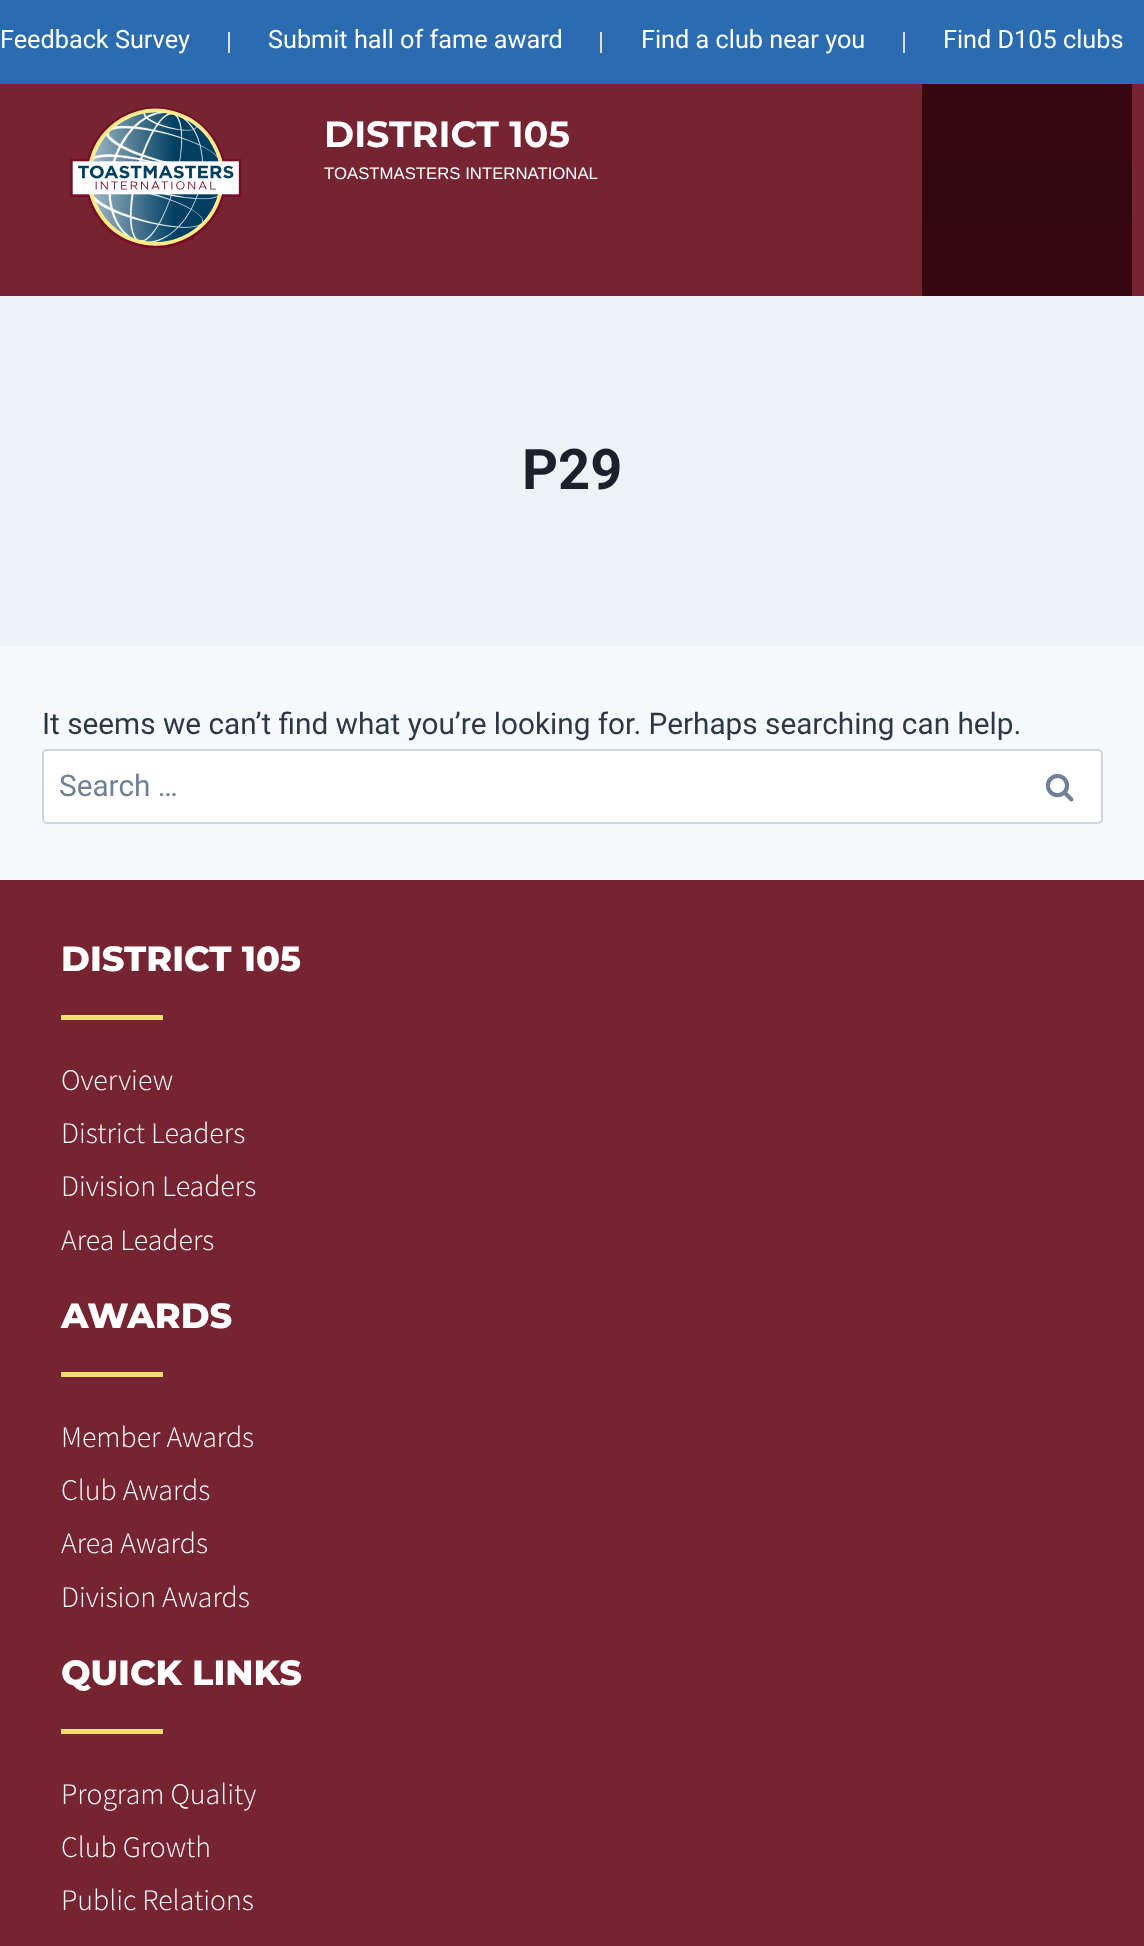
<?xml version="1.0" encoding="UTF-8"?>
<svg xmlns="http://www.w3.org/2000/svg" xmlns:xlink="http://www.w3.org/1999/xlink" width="1144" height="1946">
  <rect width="100%" height="100%" fill="#f7fafc" />
  <rect width="1144" height="84" fill="#2b6cb0" />
  <rect x="228" y="32" width="2" height="21" fill="#dddddd" />
  <rect x="600" y="32" width="2" height="21" fill="#dddddd" />
  <rect x="903" y="32" width="2" height="21" fill="#dddddd" />
  <rect y="84" width="1144" height="212" fill="#772432" />
  <image x="70" y="107" width="172" height="142" xlink:href="image1.png" />
  <rect x="922" y="84" width="210" height="212" fill="#35070f" />
  <rect x="922" y="161" width="210" height="58" rx="5" fill="#32070e" />
  <rect y="296" width="1144" height="350" fill="#edf2f7" />
  <rect x="43" y="750" width="1059" height="73" rx="4" fill="#ffffff" stroke="#cbd5e0" stroke-width="2" />
  <image x="1045" y="773" width="29" height="29" xlink:href="image2.png" />
  <rect y="880" width="1144" height="1066" fill="#772432" />
  <rect x="61" y="1015" width="102" height="5" fill="#f2df74" />
  <rect x="61" y="1372" width="102" height="5" fill="#f2df74" />
  <rect x="61" y="1729" width="102" height="5" fill="#f2df74" />
  <text x="0" y="48" style="font-family: Roboto; font-size: 25.25px; fill: #ffffff">Feedback Survey</text>
  <text x="268" y="48" style="font-family: Roboto; font-size: 25.25px; fill: #ffffff">Submit hall of fame award</text>
  <text x="641" y="48" style="font-family: Roboto; font-size: 25.25px; fill: #ffffff">Find a club near you</text>
  <text x="943" y="48" style="font-family: Roboto; font-size: 25.25px; fill: #ffffff">Find D105 clubs</text>
  <text x="324" y="147" style="font-family: Montserrat; font-size: 36.5px; font-weight: bold; fill: #ffffff">DISTRICT 105</text>
  <text x="324" y="179" style="font-family: Liberation Sans; font-size: 16.75px; fill: #ffffff">TOASTMASTERS INTERNATIONAL</text>
  <text x="522" y="489" style="font-family: Roboto; font-size: 56px; font-weight: bold; fill: #1a202c">P29</text>
  <text x="42" y="734" style="font-family: Roboto; font-size: 29.75px; fill: #2d3748">It seems we can’t find what you’re looking for. Perhaps searching can help.</text>
  <text x="59" y="796" style="font-family: Roboto; font-size: 29.75px; fill: #718096">Search …</text>
  <text x="61" y="971" style="font-family: Montserrat; font-size: 35px; font-weight: 800; fill: #ffffff">DISTRICT 105</text>
  <text x="61" y="1090" style="font-family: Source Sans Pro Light; font-size: 29.75px; font-weight: 300; fill: #ffffff">Overview</text>
  <text x="61" y="1143" style="font-family: Source Sans Pro Light; font-size: 29.75px; font-weight: 300; fill: #ffffff">District Leaders</text>
  <text x="61" y="1196" style="font-family: Source Sans Pro Light; font-size: 29.75px; font-weight: 300; fill: #ffffff">Division Leaders</text>
  <text x="61" y="1250" style="font-family: Source Sans Pro Light; font-size: 29.75px; font-weight: 300; fill: #ffffff">Area Leaders</text>
  <text x="61" y="1328" style="font-family: Montserrat; font-size: 35px; font-weight: 800; fill: #ffffff">AWARDS</text>
  <text x="61" y="1447" style="font-family: Source Sans Pro Light; font-size: 29.75px; font-weight: 300; fill: #ffffff">Member Awards</text>
  <text x="61" y="1500" style="font-family: Source Sans Pro Light; font-size: 29.75px; font-weight: 300; fill: #ffffff">Club Awards</text>
  <text x="61" y="1553" style="font-family: Source Sans Pro Light; font-size: 29.75px; font-weight: 300; fill: #ffffff">Area Awards</text>
  <text x="61" y="1607" style="font-family: Source Sans Pro Light; font-size: 29.75px; font-weight: 300; fill: #ffffff">Division Awards</text>
  <text x="61" y="1685" style="font-family: Montserrat; font-size: 35px; font-weight: 800; fill: #ffffff">QUICK LINKS</text>
  <text x="61" y="1804" style="font-family: Source Sans Pro Light; font-size: 29.75px; font-weight: 300; fill: #ffffff">Program Quality</text>
  <text x="61" y="1857" style="font-family: Source Sans Pro Light; font-size: 29.75px; font-weight: 300; fill: #ffffff">Club Growth</text>
  <text x="61" y="1910" style="font-family: Source Sans Pro Light; font-size: 29.75px; font-weight: 300; fill: #ffffff">Public Relations</text>
</svg>
